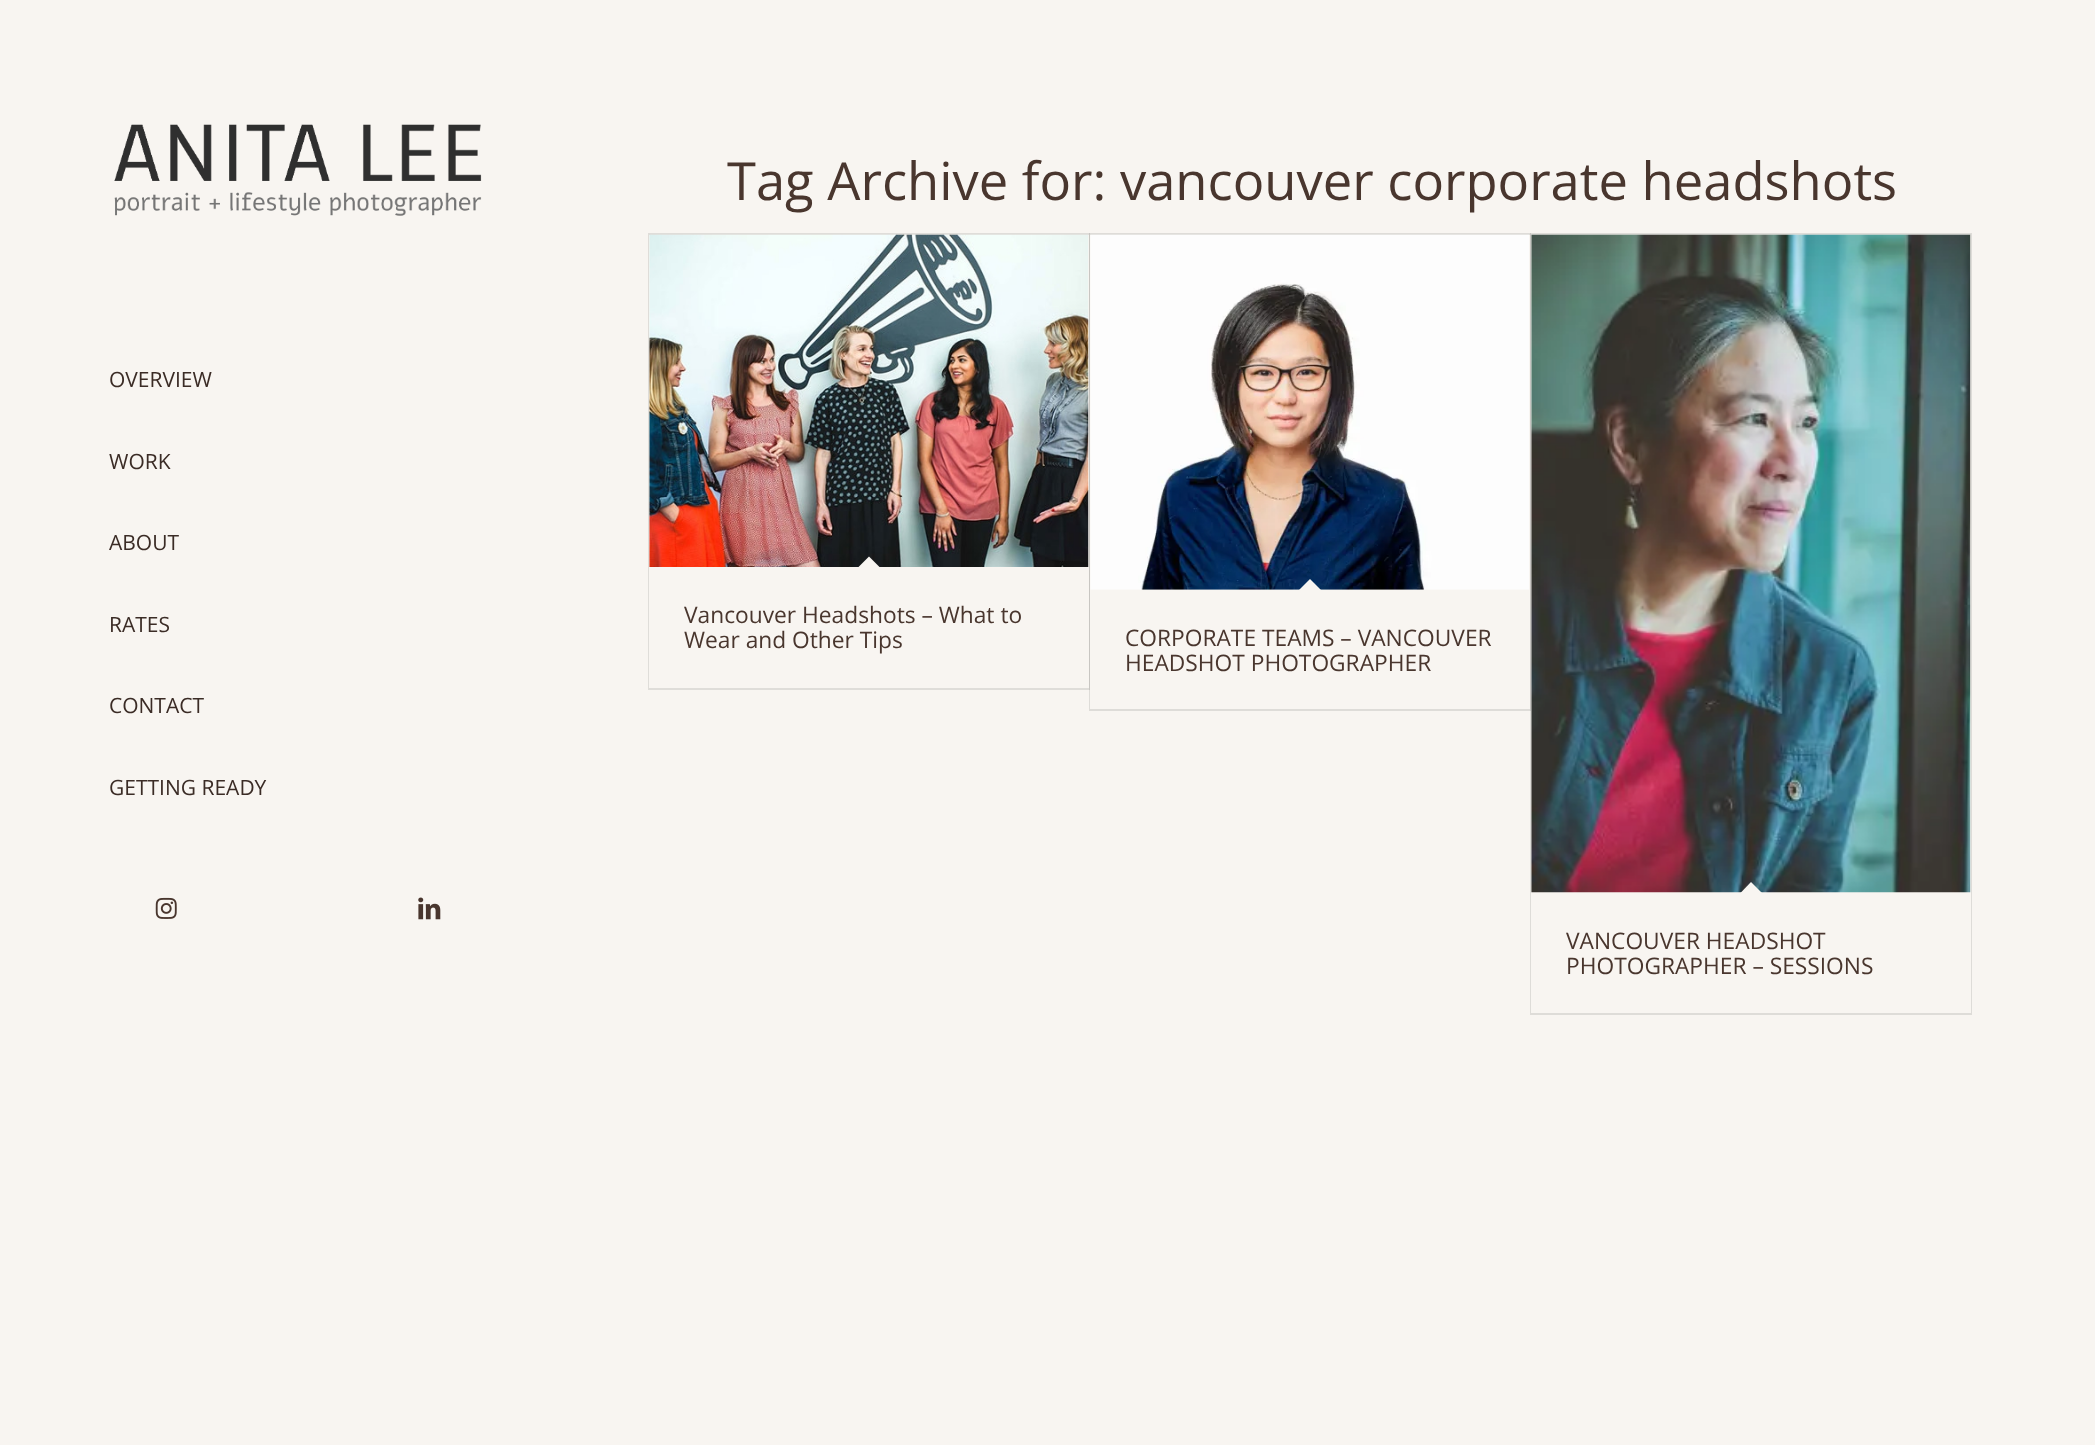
<?xml version="1.0" encoding="UTF-8"?>
<svg xmlns="http://www.w3.org/2000/svg" xmlns:xlink="http://www.w3.org/1999/xlink" width="2095" height="1445">
  <rect width="100%" height="100%" fill="#f8f5f1" />
  <image x="114" y="124" width="368" height="92" xlink:href="image1.png" />
  <image x="155" y="897" width="22" height="22" xlink:href="image2.png" />
  <image x="418" y="897" width="23" height="23" xlink:href="image3.png" />
  <rect x="649" y="234" width="440" height="455" fill="none" stroke="#dfddd9" stroke-width="2" />
  <rect x="649" y="235" width="440" height="453" fill="#f8f5f1" />
  <image x="649" y="234" width="440" height="333" xlink:href="image4.png" />
  <path d="M 869 556.5 l 12.5 12.5 l -12.5 12.5 l -12.5 -12.5 z" fill="#f8f5f1" />
  <rect x="1090" y="234" width="440" height="476" fill="none" stroke="#000000" stroke-opacity="0.1" stroke-width="2" />
  <rect x="1090" y="235" width="440" height="474" fill="#f8f5f1" />
  <image x="1090" y="234" width="439" height="356" xlink:href="image5.png" />
  <path d="M 1310 579 l 12.5 12.5 l -12.5 12 l -12.5 -12 z" fill="#f8f5f1" />
  <rect x="1531" y="234" width="440" height="780" fill="none" stroke="#000000" stroke-opacity="0.1" stroke-width="2" />
  <rect x="1531" y="235" width="440" height="778" fill="#f8f5f1" />
  <image x="1531" y="234" width="440" height="659" xlink:href="image6.png" />
  <path d="M 1751 882 l 12.5 12.5 l -12.5 12.5 l -12 -12.5 z" fill="#f8f5f1" />
  <text x="109" y="387" style="font-family: Open Sans; font-size: 21px; fill: #3b2c26">OVERVIEW</text>
  <text x="109" y="469" style="font-family: Open Sans; font-size: 21px; fill: #3b2c26">WORK</text>
  <text x="109" y="550" style="font-family: Open Sans; font-size: 21px; fill: #3b2c26">ABOUT</text>
  <text x="109" y="632" style="font-family: Open Sans; font-size: 21px; fill: #3b2c26">RATES</text>
  <text x="109" y="713" style="font-family: Open Sans; font-size: 21px; fill: #3b2c26">CONTACT</text>
  <text x="109" y="795" style="font-family: Open Sans; font-size: 21px; fill: #3b2c26">GETTING READY</text>
  <text x="727" y="200" style="font-family: Open Sans; font-size: 52.5px; fill: #49362e">Tag Archive for: vancouver corporate headshots</text>
  <text x="684" y="623" style="font-family: Open Sans; font-size: 22.75px; fill: #49362e">Vancouver Headshots – What to</text>
  <text x="684" y="648" style="font-family: Open Sans; font-size: 22.75px; fill: #49362e">Wear and Other Tips</text>
  <text x="1125" y="646" style="font-family: Open Sans; font-size: 22.75px; fill: #49362e">CORPORATE TEAMS – VANCOUVER</text>
  <text x="1125" y="671" style="font-family: Open Sans; font-size: 22.75px; fill: #49362e">HEADSHOT PHOTOGRAPHER</text>
  <text x="1566" y="949" style="font-family: Open Sans; font-size: 22.75px; fill: #49362e">VANCOUVER HEADSHOT</text>
  <text x="1566" y="974" style="font-family: Open Sans; font-size: 22.75px; fill: #49362e">PHOTOGRAPHER – SESSIONS</text>
</svg>
